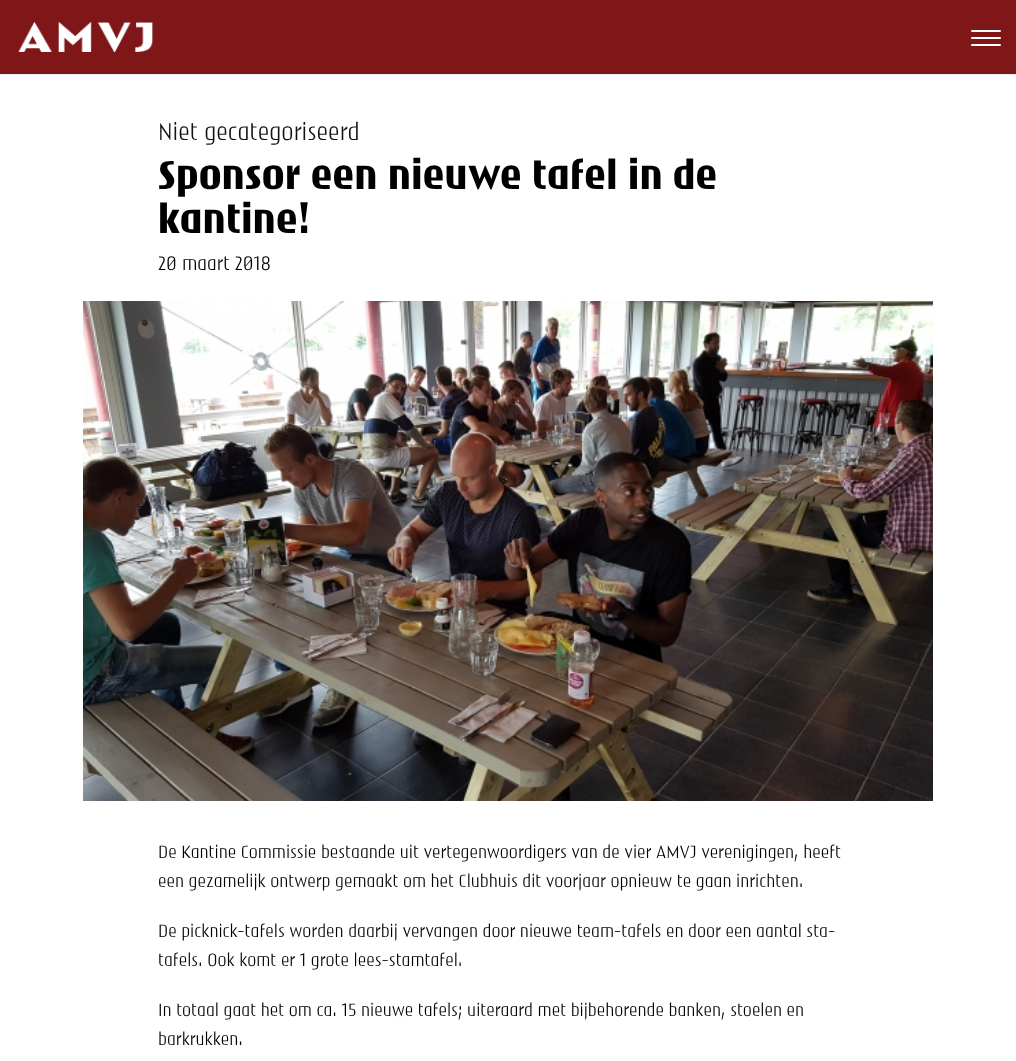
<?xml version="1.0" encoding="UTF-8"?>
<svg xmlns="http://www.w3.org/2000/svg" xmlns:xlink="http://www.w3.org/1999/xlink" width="1016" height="1061">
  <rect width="100%" height="100%" fill="#ffffff" />
  <rect y="74" width="1016" height="1" fill="#ebebeb" />
  <rect width="1016" height="74" fill="#7f1719" />
  <image x="18" y="22" width="136" height="30" xlink:href="image1.png" />
  <rect x="971" y="30" width="30" height="2" rx="1" fill="#ffffff" />
  <rect x="971" y="37" width="30" height="2" rx="1" fill="#ffffff" />
  <rect x="971" y="44" width="30" height="2" rx="1" fill="#ffffff" />
  <image x="83" y="301" width="850" height="500" xlink:href="image2.png" />
  <text x="158" y="140" style="font-family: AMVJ; font-size: 24px; fill: #111111">Niet gecategoriseerd</text>
  <text x="158" y="189" style="font-family: AMVJ; font-size: 40px; font-weight: bold; letter-spacing: 0.5px; fill: #000000">Sponsor een nieuwe tafel in de</text>
  <text x="158" y="233" style="font-family: AMVJ; font-size: 40px; font-weight: bold; letter-spacing: 0.5px; fill: #000000">kantine!</text>
  <text x="158" y="270" style="font-family: AMVJ; font-size: 19.25px; fill: #000000">20 maart 2018</text>
  <text x="158" y="858" style="font-family: AMVJ; font-size: 17.6px; fill: #000000">De Kantine Commissie bestaande uit vertegenwoordigers van de vier AMVJ verenigingen, heeft</text>
  <text x="158" y="887" style="font-family: AMVJ; font-size: 17.6px; fill: #000000">een gezamelijk ontwerp gemaakt om het Clubhuis dit voorjaar opnieuw te gaan inrichten.</text>
  <text x="158" y="937" style="font-family: AMVJ; font-size: 17.6px; fill: #000000">De picknick-tafels worden daarbij vervangen door nieuwe team-tafels en door een aantal sta-</text>
  <text x="158" y="966" style="font-family: AMVJ; font-size: 17.6px; fill: #000000">tafels. Ook komt er 1 grote lees-stamtafel.</text>
  <text x="158" y="1016" style="font-family: AMVJ; font-size: 17.6px; fill: #000000">In totaal gaat het om ca. 15 nieuwe tafels; uiteraard met bijbehorende banken, stoelen en</text>
  <text x="158" y="1045" style="font-family: AMVJ; font-size: 17.6px; fill: #000000">barkrukken.</text>
</svg>
